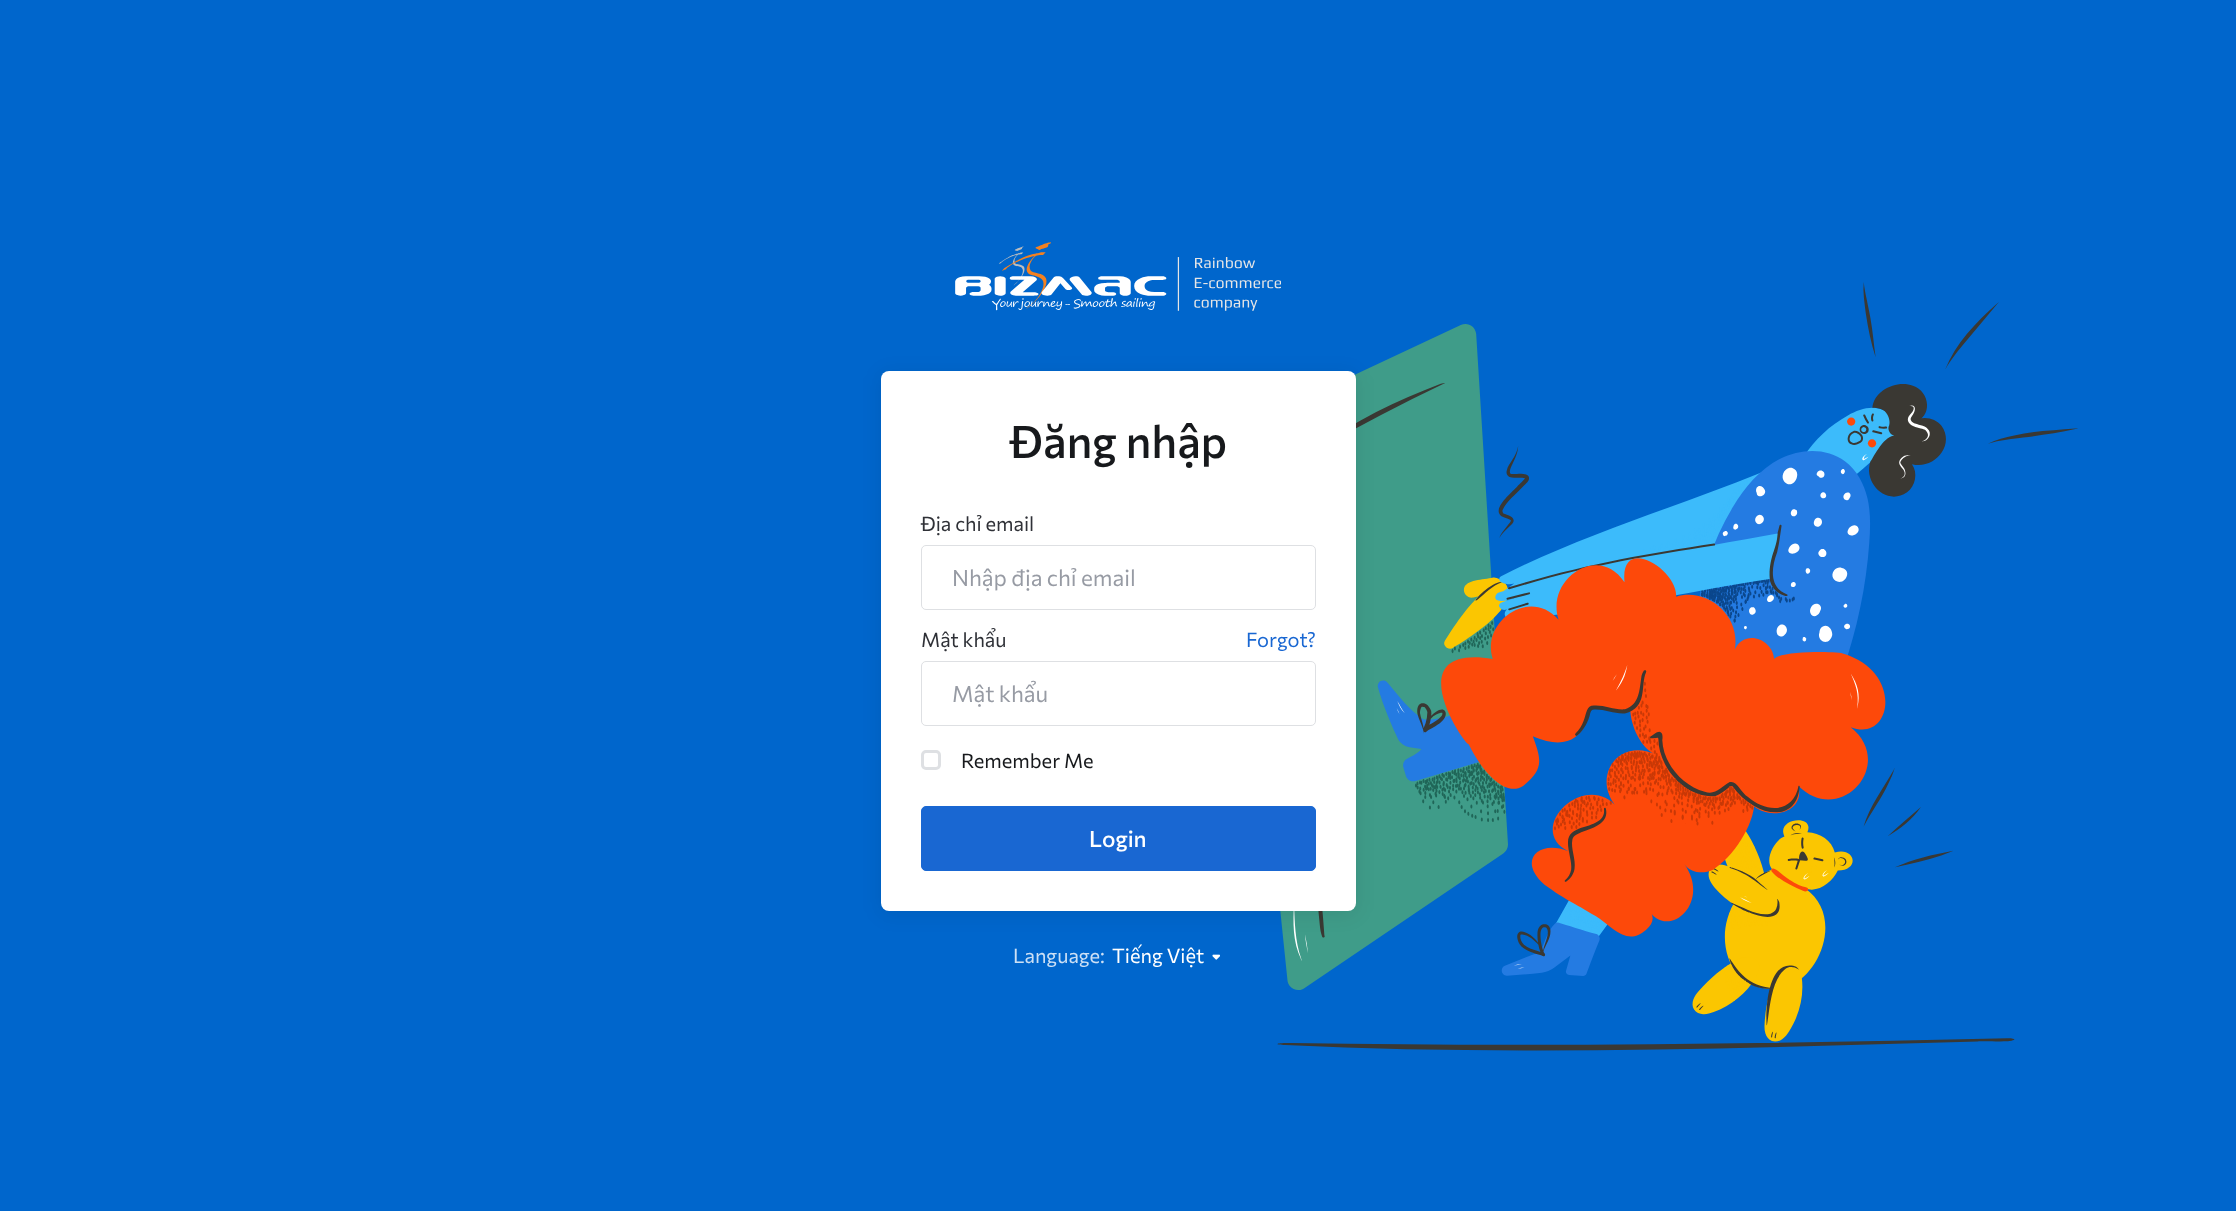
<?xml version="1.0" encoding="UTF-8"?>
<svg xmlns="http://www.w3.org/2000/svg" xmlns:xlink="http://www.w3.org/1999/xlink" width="2236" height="1211">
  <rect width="100%" height="100%" fill="#0066cc" />
  <image x="1277" y="282" width="801" height="769" xlink:href="image1.png" />
  <image x="955" y="242" width="326" height="69" xlink:href="image2.png" />
  <rect x="881" y="374" width="475" height="540" rx="8" fill="#000000" fill-opacity="0.08" filter="blur(10px)" />
  <rect x="881" y="371" width="475" height="540" rx="8" fill="#000000" fill-opacity="0.1" filter="blur(0.5px)" />
  <rect x="881" y="371" width="475" height="540" rx="8" fill="#ffffff" />
  <rect x="921.5" y="545.5" width="394" height="64" rx="4.5" fill="none" stroke="#dee0e3" />
  <rect x="921.5" y="661.5" width="394" height="64" rx="4.5" fill="none" stroke="#dee0e3" />
  <rect x="922.5" y="751.5" width="17" height="17" rx="3.5" fill="none" stroke="#dee0e3" stroke-width="3" />
  <rect x="921.5" y="806.5" width="394" height="64" rx="4.5" fill="#1967d2" stroke="#1967d2" />
  <image x="1212" y="954" width="8" height="6" xlink:href="image3.png" />
  <text x="1010" y="458" style="font-family: Commissioner; font-size: 45px; font-weight: 500; fill: #17191c">Đăng nhập</text>
  <text x="921" y="531" style="font-family: Commissioner; font-size: 20px; fill: #2f3137">Địa chỉ email</text>
  <text x="952" y="586" style="font-family: Commissioner; font-size: 22.5px; fill: #979ba4">Nhập địa chỉ email</text>
  <text x="921" y="647" style="font-family: Commissioner; font-size: 20px; fill: #2f3137">Mật khẩu</text>
  <text x="1246" y="647" style="font-family: Commissioner; font-size: 20px; fill: #1967d2">Forgot?</text>
  <text x="952" y="702" style="font-family: Commissioner; font-size: 22.5px; fill: #979ba4">Mật khẩu</text>
  <text x="961" y="768" style="font-family: Commissioner; font-size: 20px; fill: #17191c">Remember Me</text>
  <text x="1089" y="847" style="font-family: Commissioner; font-size: 22.5px; font-weight: 500; fill: #ffffff">Login</text>
  <text x="1013" y="963" style="font-family: Commissioner; font-size: 20px; fill: #cce0f5">Language:</text>
  <text x="1112" y="963" style="font-family: Commissioner; font-size: 20px; fill: #ffffff">Tiếng Việt</text>
</svg>
